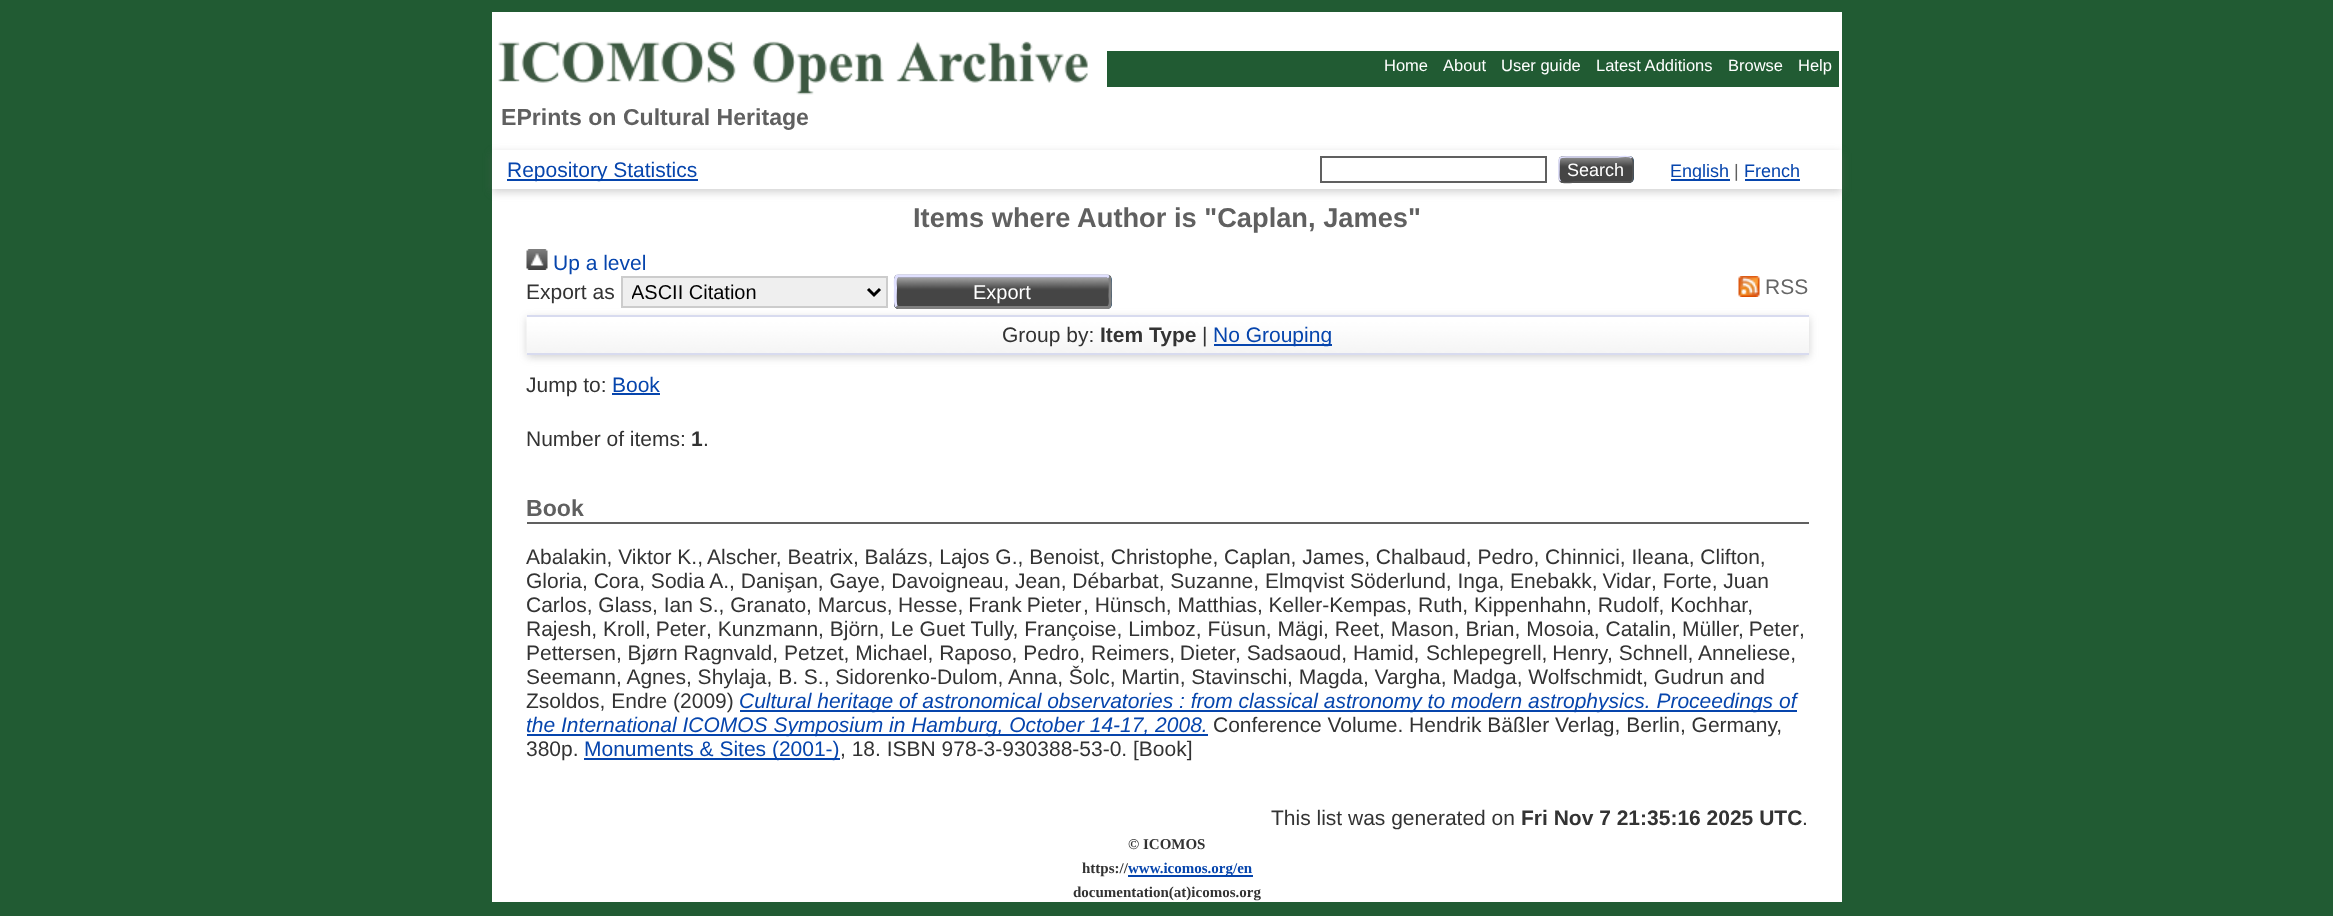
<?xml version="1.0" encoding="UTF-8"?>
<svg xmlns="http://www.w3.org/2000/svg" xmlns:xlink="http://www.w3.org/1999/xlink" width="2333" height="916">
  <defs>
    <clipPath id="clip1"><path d="M 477 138 h 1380 v 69 h -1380 z m 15 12 h 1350 v 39 h -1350 z" clip-rule="evenodd" /></clipPath>
    <clipPath id="clip2"><rect x="632" y="279" width="228" height="26" /></clipPath>
  </defs>
  <rect width="100%" height="100%" fill="#215b33" />
  <rect x="492" y="12" width="1350" height="890" fill="#ffffff" />
  <image x="498" y="41" width="590" height="54" xlink:href="image1.png" />
  <rect x="1107" y="51" width="732" height="36" fill="#215b33" />
  <g clip-path="url(#clip1)">
    <rect x="492" y="153" width="1350" height="39" fill="#646464" fill-opacity="0.3" filter="blur(4.5px)" />
  </g>
  <rect x="507" y="179" width="191" height="2" fill="#0645ad" />
  <rect x="1321" y="157" width="225" height="25" fill="none" stroke="#606060" stroke-width="2" />
  <rect x="1559" y="156" width="75" height="27" rx="5" fill="#1f4f76" />
  <image x="1558" y="156" width="76" height="27" xlink:href="image2.png" />
  <path d="M 1631.5 158 c 2.5 2 1.5 8.5 1.5 11.5 c 0 15 1 12.5 -15 12.5 h -44 c -1 0 -11 2 -13.5 -1" fill="none" stroke="#555555" stroke-width="1.5" />
  <path d="M 1560.5 181 c -2.5 -2 -1.5 -8.5 -1.5 -11.5 c 0 -15 -1 -12.5 15 -12.5 h 44 c 1 0 11 -2 13.5 1" fill="none" stroke="#e0e0ff" stroke-width="1.5" />
  <rect x="1671" y="179" width="59" height="2" fill="#0645ad" />
  <rect x="1745" y="179" width="55" height="2" fill="#0645ad" />
  <image x="526" y="249" width="22" height="21" xlink:href="image3.png" />
  <rect x="527" y="318" width="1282" height="39" fill="#646464" fill-opacity="0.3" filter="blur(4.5px)" />
  <rect x="622" y="277" width="265" height="30" fill="#efefef" stroke="#cccccc" stroke-width="2" />
  <path d="M 868 289 l 6 6 l 6 -6" fill="none" stroke="#000000" stroke-width="3" />
  <rect x="894" y="275" width="218" height="34" rx="5" fill="#1f4f76" />
  <image x="894" y="274" width="218" height="35" xlink:href="image4.png" />
  <path d="M 1109 277 c 2 2 1 15.5 1 19 c 0 2 1.5 10 -2 11.5 h -209.5 l -2 -1" fill="none" stroke="#808080" stroke-width="3" />
  <path d="M 896.5 306.5 c -2 -2 -1 -15.5 -1 -19 c 0 -2 -1.5 -10 2 -11.5 h 209.5 l 2 1" fill="none" stroke="#e0e0ff" stroke-width="3" />
  <image x="1738" y="276" width="22" height="21" xlink:href="image5.png" />
  <image x="526" y="316" width="1283" height="38" xlink:href="image6.png" />
  <rect x="527" y="315" width="1282" height="2" fill="#d8dbef" />
  <rect x="527" y="353" width="1282" height="2" fill="#d8dbef" />
  <rect x="1214" y="344" width="118" height="2" fill="#0645ad" />
  <rect x="612" y="393" width="48" height="2" fill="#0645ad" />
  <rect x="527" y="522" width="1282" height="2" fill="#606060" />
  <rect x="740" y="710" width="1057" height="2" fill="#0645ad" />
  <rect x="527" y="734" width="681" height="2" fill="#0645ad" />
  <rect x="584" y="758" width="256" height="2" fill="#0645ad" />
  <rect x="1128" y="875" width="125" height="2" fill="#0645ad" />
  <text x="1384" y="71" style="font-family: Liberation Sans; font-size: 16.5px; fill: #ffffff">Home</text>
  <text x="1443" y="71" style="font-family: Liberation Sans; font-size: 16.5px; fill: #ffffff">About</text>
  <text x="1501" y="71" style="font-family: Liberation Sans; font-size: 16.5px; fill: #ffffff">User guide</text>
  <text x="1596" y="71" style="font-family: Liberation Sans; font-size: 16.5px; fill: #ffffff">Latest Additions</text>
  <text x="1728" y="71" style="font-family: Liberation Sans; font-size: 16.5px; fill: #ffffff">Browse</text>
  <text x="1798" y="71" style="font-family: Liberation Sans; font-size: 16.5px; fill: #ffffff">Help</text>
  <text x="501" y="125" style="font-family: Liberation Sans; font-size: 23.1px; font-weight: bold; fill: #606060">EPrints on Cultural Heritage</text>
  <text x="507" y="177" style="font-family: Liberation Sans; font-size: 21px; fill: #0645ad">Repository Statistics</text>
  <text x="1567" y="176" style="font-family: Liberation Sans; font-size: 18px; fill: #ffffff">Search</text>
  <text x="1670" y="177" style="font-family: Liberation Sans; font-size: 18px; fill: #0645ad">English</text>
  <text x="1734" y="177" style="font-family: Liberation Sans; font-size: 18px; fill: #606060">|</text>
  <text x="1744" y="177" style="font-family: Liberation Sans; font-size: 18px; fill: #0645ad">French</text>
  <text x="913" y="227" style="font-family: Liberation Sans; font-size: 27.25px; font-weight: bold; fill: #606060">Items where Author is "Caplan, James</text>
  <text x="1408" y="227" style="font-family: Liberation Sans; font-size: 27.25px; font-weight: bold; fill: #606060">"</text>
  <text x="553" y="270" style="font-family: Liberation Sans; font-size: 21px; fill: #0645ad">Up a level</text>
  <text x="526" y="299" style="font-family: Liberation Sans; font-size: 21px; fill: #333333">Export as</text>
  <g clip-path="url(#clip2)">
    <text x="631" y="299" style="font-family: Liberation Sans; font-size: 20px; fill: #000000">ASCII Citation</text>
  </g>
  <text x="973" y="299" style="font-family: Liberation Sans; font-size: 20px; fill: #ffffff">Export</text>
  <text x="1765" y="294" style="font-family: Liberation Sans; font-size: 21px; fill: #666666">RSS</text>
  <text x="1002" y="342" style="font-family: Liberation Sans; font-size: 21px; fill: #333333">Group by:</text>
  <text x="1100" y="342" style="font-family: Liberation Sans; font-size: 21px; font-weight: bold; fill: #333333">Item Type</text>
  <text x="1202" y="342" style="font-family: Liberation Sans; font-size: 21px; fill: #333333">|</text>
  <text x="1213" y="342" style="font-family: Liberation Sans; font-size: 21px; fill: #0645ad">No Grouping</text>
  <text x="526" y="392" style="font-family: Liberation Sans; font-size: 21px; fill: #333333">Jump to:</text>
  <text x="612" y="392" style="font-family: Liberation Sans; font-size: 21px; fill: #0645ad">Book</text>
  <text x="526" y="446" style="font-family: Liberation Sans; font-size: 21px; fill: #333333">Number of items:</text>
  <text x="691" y="446" style="font-family: Liberation Sans; font-size: 21px; font-weight: bold; fill: #333333">1</text>
  <text x="703" y="446" style="font-family: Liberation Sans; font-size: 21px; fill: #333333">.</text>
  <text x="526" y="516" style="font-family: Liberation Sans; font-size: 23.1px; font-weight: bold; fill: #606060">Book</text>
  <text x="526" y="564" style="font-family: Liberation Sans; font-size: 21px; fill: #333333">Abalakin, Viktor K.,</text>
  <text x="707" y="564" style="font-family: Liberation Sans; font-size: 21px; fill: #333333">Alscher, Beatrix, Balázs, Lajos G., Benoist, Christophe, Caplan, James, Chalbaud, Pedro, Chinnici, Ileana, Clifton,</text>
  <text x="526" y="588" style="font-family: Liberation Sans; font-size: 21px; fill: #333333">Gloria, Cora, Sodia A., Danişan, Gaye, Davoigneau, Jean, Débarbat, Suzanne, Elmqvist Söderlund, Inga,</text>
  <text x="1510" y="588" word-spacing="-1" style="font-family: Liberation Sans; font-size: 21px; fill: #333333">Enebakk, Vidar</text>
  <text x="1651" y="588" style="font-family: Liberation Sans; font-size: 21px; fill: #333333">, Forte, Juan</text>
  <text x="526" y="612" style="font-family: Liberation Sans; font-size: 21px; fill: #333333">Carlos, Glass, Ian S., Granato, Marcus,</text>
  <text x="898" y="612" word-spacing="-1" style="font-family: Liberation Sans; font-size: 21px; fill: #333333">Hesse, Frank Pieter</text>
  <text x="1083" y="612" style="font-family: Liberation Sans; font-size: 21px; fill: #333333">, Hünsch, Matthias, Keller-Kempas, Ruth, Kippenhahn, Rudolf, Kochhar,</text>
  <text x="526" y="636" style="font-family: Liberation Sans; font-size: 21px; fill: #333333">Rajesh,</text>
  <text x="603" y="636" word-spacing="-1" style="font-family: Liberation Sans; font-size: 21px; fill: #333333">Kroll, Peter</text>
  <text x="706" y="636" style="font-family: Liberation Sans; font-size: 21px; fill: #333333">, Kunzmann, Björn, Le Guet Tully, Françoise, Limboz, Füsun, Mägi, Reet, Mason, Brian, Mosoia, Catalin,</text>
  <text x="1682" y="636" word-spacing="-1" style="font-family: Liberation Sans; font-size: 21px; fill: #333333">Müller, Peter</text>
  <text x="1799" y="636" style="font-family: Liberation Sans; font-size: 21px; fill: #333333">,</text>
  <text x="526" y="660" style="font-family: Liberation Sans; font-size: 21px; fill: #333333">Pettersen, Bjørn Ragnvald, Petzet, Michael, Raposo, Pedro,</text>
  <text x="1091" y="660" word-spacing="-1" style="font-family: Liberation Sans; font-size: 21px; fill: #333333">Reimers, Dieter</text>
  <text x="1235" y="660" style="font-family: Liberation Sans; font-size: 21px; fill: #333333">, Sadsaoud, Hamid,</text>
  <text x="1426" y="660" word-spacing="-1" style="font-family: Liberation Sans; font-size: 21px; fill: #333333">Schlepegrell, Henry</text>
  <text x="1607" y="660" style="font-family: Liberation Sans; font-size: 21px; fill: #333333">, Schnell, Anneliese,</text>
  <text x="526" y="684" style="font-family: Liberation Sans; font-size: 21px; fill: #333333">Seemann, Agnes, Shylaja, B. S., Sidorenko-Dulom, Anna, Šolc, Martin, Stavinschi, Magda, Vargha, Madga, Wolfschmidt, Gudrun and</text>
  <text x="526" y="708" style="font-family: Liberation Sans; font-size: 21px; fill: #333333">Zsoldos, Endre (2009)</text>
  <text x="739" y="708" style="font-family: Liberation Sans; font-size: 21px; font-style: italic; fill: #0645ad">Cultural heritage of astronomical observatories : from classical astronomy to modern astrophysics. Proceedings of</text>
  <text x="526" y="732" style="font-family: Liberation Sans; font-size: 21px; font-style: italic; fill: #0645ad">the International ICOMOS Symposium in Hamburg, October 14-17, 2008.</text>
  <text x="1213" y="732" style="font-family: Liberation Sans; font-size: 21px; fill: #333333">Conference Volume. Hendrik Bäßler Verlag, Berlin, Germany,</text>
  <text x="526" y="756" style="font-family: Liberation Sans; font-size: 21px; fill: #333333">380p.</text>
  <text x="584" y="756" style="font-family: Liberation Sans; font-size: 21px; fill: #0645ad">Monuments &amp; Sites (2001-)</text>
  <text x="840" y="756" style="font-family: Liberation Sans; font-size: 21px; fill: #333333">, 18. ISBN 978-3-930388-53-0. [Book]</text>
  <text x="1271" y="825" style="font-family: Liberation Sans; font-size: 21px; fill: #333333">This list was generated on</text>
  <text x="1521" y="825" style="font-family: Liberation Sans; font-size: 21px; font-weight: bold; fill: #333333">Fri Nov 7 21:35:16 2025 UTC</text>
  <text x="1802" y="825" style="font-family: Liberation Sans; font-size: 21px; fill: #333333">.</text>
  <text x="1128" y="849" style="font-family: Liberation Serif; font-size: 15px; font-weight: bold; fill: #333333">© ICOMOS</text>
  <text x="1082" y="873" style="font-family: Liberation Serif; font-size: 15px; font-weight: bold; fill: #333333">https://</text>
  <text x="1128" y="873" style="font-family: Liberation Serif; font-size: 15px; font-weight: bold; fill: #0645ad">www.icomos.org/en</text>
  <text x="1073" y="897" style="font-family: Liberation Serif; font-size: 15px; font-weight: bold; fill: #333333">documentation(at)icomos.org</text>
</svg>
